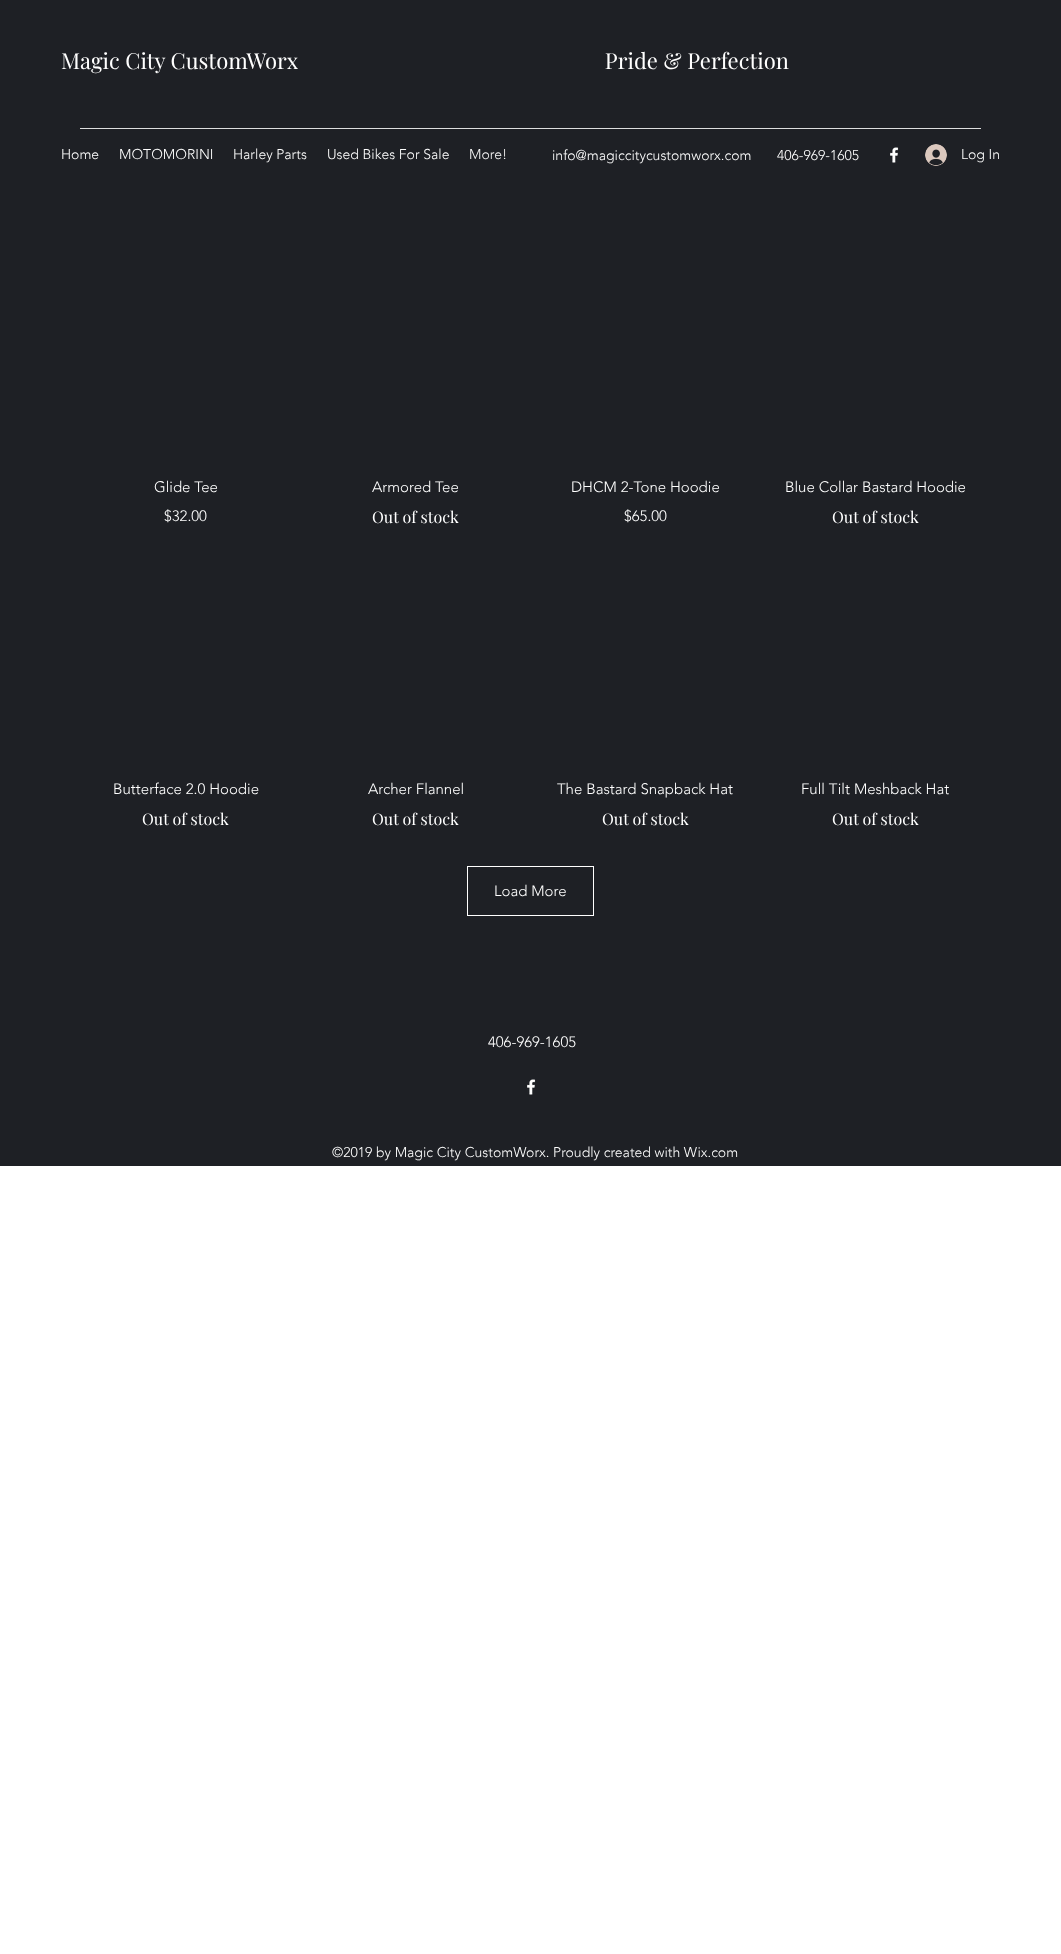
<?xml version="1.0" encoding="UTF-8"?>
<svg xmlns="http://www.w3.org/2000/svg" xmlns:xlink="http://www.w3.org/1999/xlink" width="1061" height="1954">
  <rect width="100%" height="100%" fill="#ffffff" />
  <rect width="1061" height="1166" fill="#1e2025" />
  <rect x="80" y="128" width="901" height="1" fill="#dddede" />
  <image x="890" y="147" width="9" height="16" xlink:href="image1.png" />
  <image x="925" y="144" width="22" height="22" xlink:href="image2.png" />
  <rect x="467.5" y="866.5" width="126" height="49" fill="none" stroke="#ffffff" />
  <image x="527" y="1079" width="9" height="16" xlink:href="image1.png" />
  <text x="61" y="69" style="font-family: Playfair Display; font-size: 22px; fill: #ffffff" xml:space="preserve">Magic City CustomWorx                                                        Pride &amp; Perfection</text>
  <text x="61" y="159" style="font-family: 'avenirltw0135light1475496'; font-size: 14px; font-weight: 300; fill: #ffffff">Home</text>
  <text x="119" y="159" style="font-family: 'avenirltw0135light1475496'; font-size: 14px; font-weight: 300; fill: #ffffff">MOTOMORINI</text>
  <text x="233" y="159" style="font-family: 'avenirltw0135light1475496'; font-size: 14px; font-weight: 300; fill: #ffffff">Harley Parts</text>
  <text x="327" y="159" style="font-family: 'avenirltw0135light1475496'; font-size: 14px; font-weight: 300; fill: #ffffff">Used Bikes For Sale</text>
  <text x="469" y="159" style="font-family: 'avenirltw0135light1475496'; font-size: 14px; font-weight: 300; fill: #f7f7f7">More!</text>
  <text x="552" y="160" style="font-family: 'avenirltw0135light1475496'; font-size: 14px; font-weight: 300; fill: #ffffff">info@magiccitycustomworx.com</text>
  <text x="777" y="160" style="font-family: 'avenirltw0135light1475496'; font-size: 14px; font-weight: 300; fill: #ffffff">406-969-1605</text>
  <text x="961" y="159" style="font-family: 'avenirltw0135light1475496'; font-size: 14px; font-weight: 300; fill: #ffffff">Log In</text>
  <text x="154" y="492" style="font-family: 'avenirltw0135light1475496'; font-size: 15px; font-weight: 300; fill: #ffffff">Glide Tee</text>
  <text x="164" y="521" style="font-family: 'avenirltw0135light1475496'; font-size: 15px; font-weight: 300; fill: #ffffff">$32.00</text>
  <text x="372" y="492" style="font-family: 'avenirltw0135light1475496'; font-size: 15px; font-weight: 300; fill: #ffffff">Armored Tee</text>
  <text x="372" y="523" style="font-family: Playfair Display; font-size: 16px; fill: #ffffff">Out of stock</text>
  <text x="571" y="492" style="font-family: 'avenirltw0135light1475496'; font-size: 15px; font-weight: 300; fill: #ffffff">DHCM 2-Tone Hoodie</text>
  <text x="624" y="521" style="font-family: 'avenirltw0135light1475496'; font-size: 15px; font-weight: 300; fill: #ffffff">$65.00</text>
  <text x="785" y="492" style="font-family: 'avenirltw0135light1475496'; font-size: 15px; font-weight: 300; fill: #ffffff">Blue Collar Bastard Hoodie</text>
  <text x="832" y="523" style="font-family: Playfair Display; font-size: 16px; fill: #ffffff">Out of stock</text>
  <text x="113" y="794" style="font-family: 'avenirltw0135light1475496'; font-size: 15px; font-weight: 300; fill: #ffffff">Butterface 2.0 Hoodie</text>
  <text x="142" y="825" style="font-family: Playfair Display; font-size: 16px; fill: #ffffff">Out of stock</text>
  <text x="368" y="794" style="font-family: 'avenirltw0135light1475496'; font-size: 15px; font-weight: 300; fill: #ffffff">Archer Flannel</text>
  <text x="372" y="825" style="font-family: Playfair Display; font-size: 16px; fill: #ffffff">Out of stock</text>
  <text x="557" y="794" style="font-family: 'avenirltw0135light1475496'; font-size: 15px; font-weight: 300; fill: #ffffff">The Bastard Snapback Hat</text>
  <text x="602" y="825" style="font-family: Playfair Display; font-size: 16px; fill: #ffffff">Out of stock</text>
  <text x="801" y="794" style="font-family: 'avenirltw0135light1475496'; font-size: 15px; font-weight: 300; fill: #ffffff">Full Tilt Meshback Hat</text>
  <text x="832" y="825" style="font-family: Playfair Display; font-size: 16px; fill: #ffffff">Out of stock</text>
  <text x="494" y="896" style="font-family: 'avenirltw0135light1475496'; font-size: 15px; font-weight: 300; fill: #ffffff">Load More</text>
  <text x="488" y="1047" style="font-family: 'avenirltw0135light1475496'; font-size: 15px; font-weight: 300; fill: #ffffff">406-969-1605</text>
  <text x="332" y="1157" style="font-family: 'avenirltw0135light1475496'; font-size: 14px; font-weight: 300; fill: #ffffff">©2019 by Magic City CustomWorx. Proudly created with Wix.com</text>
</svg>
